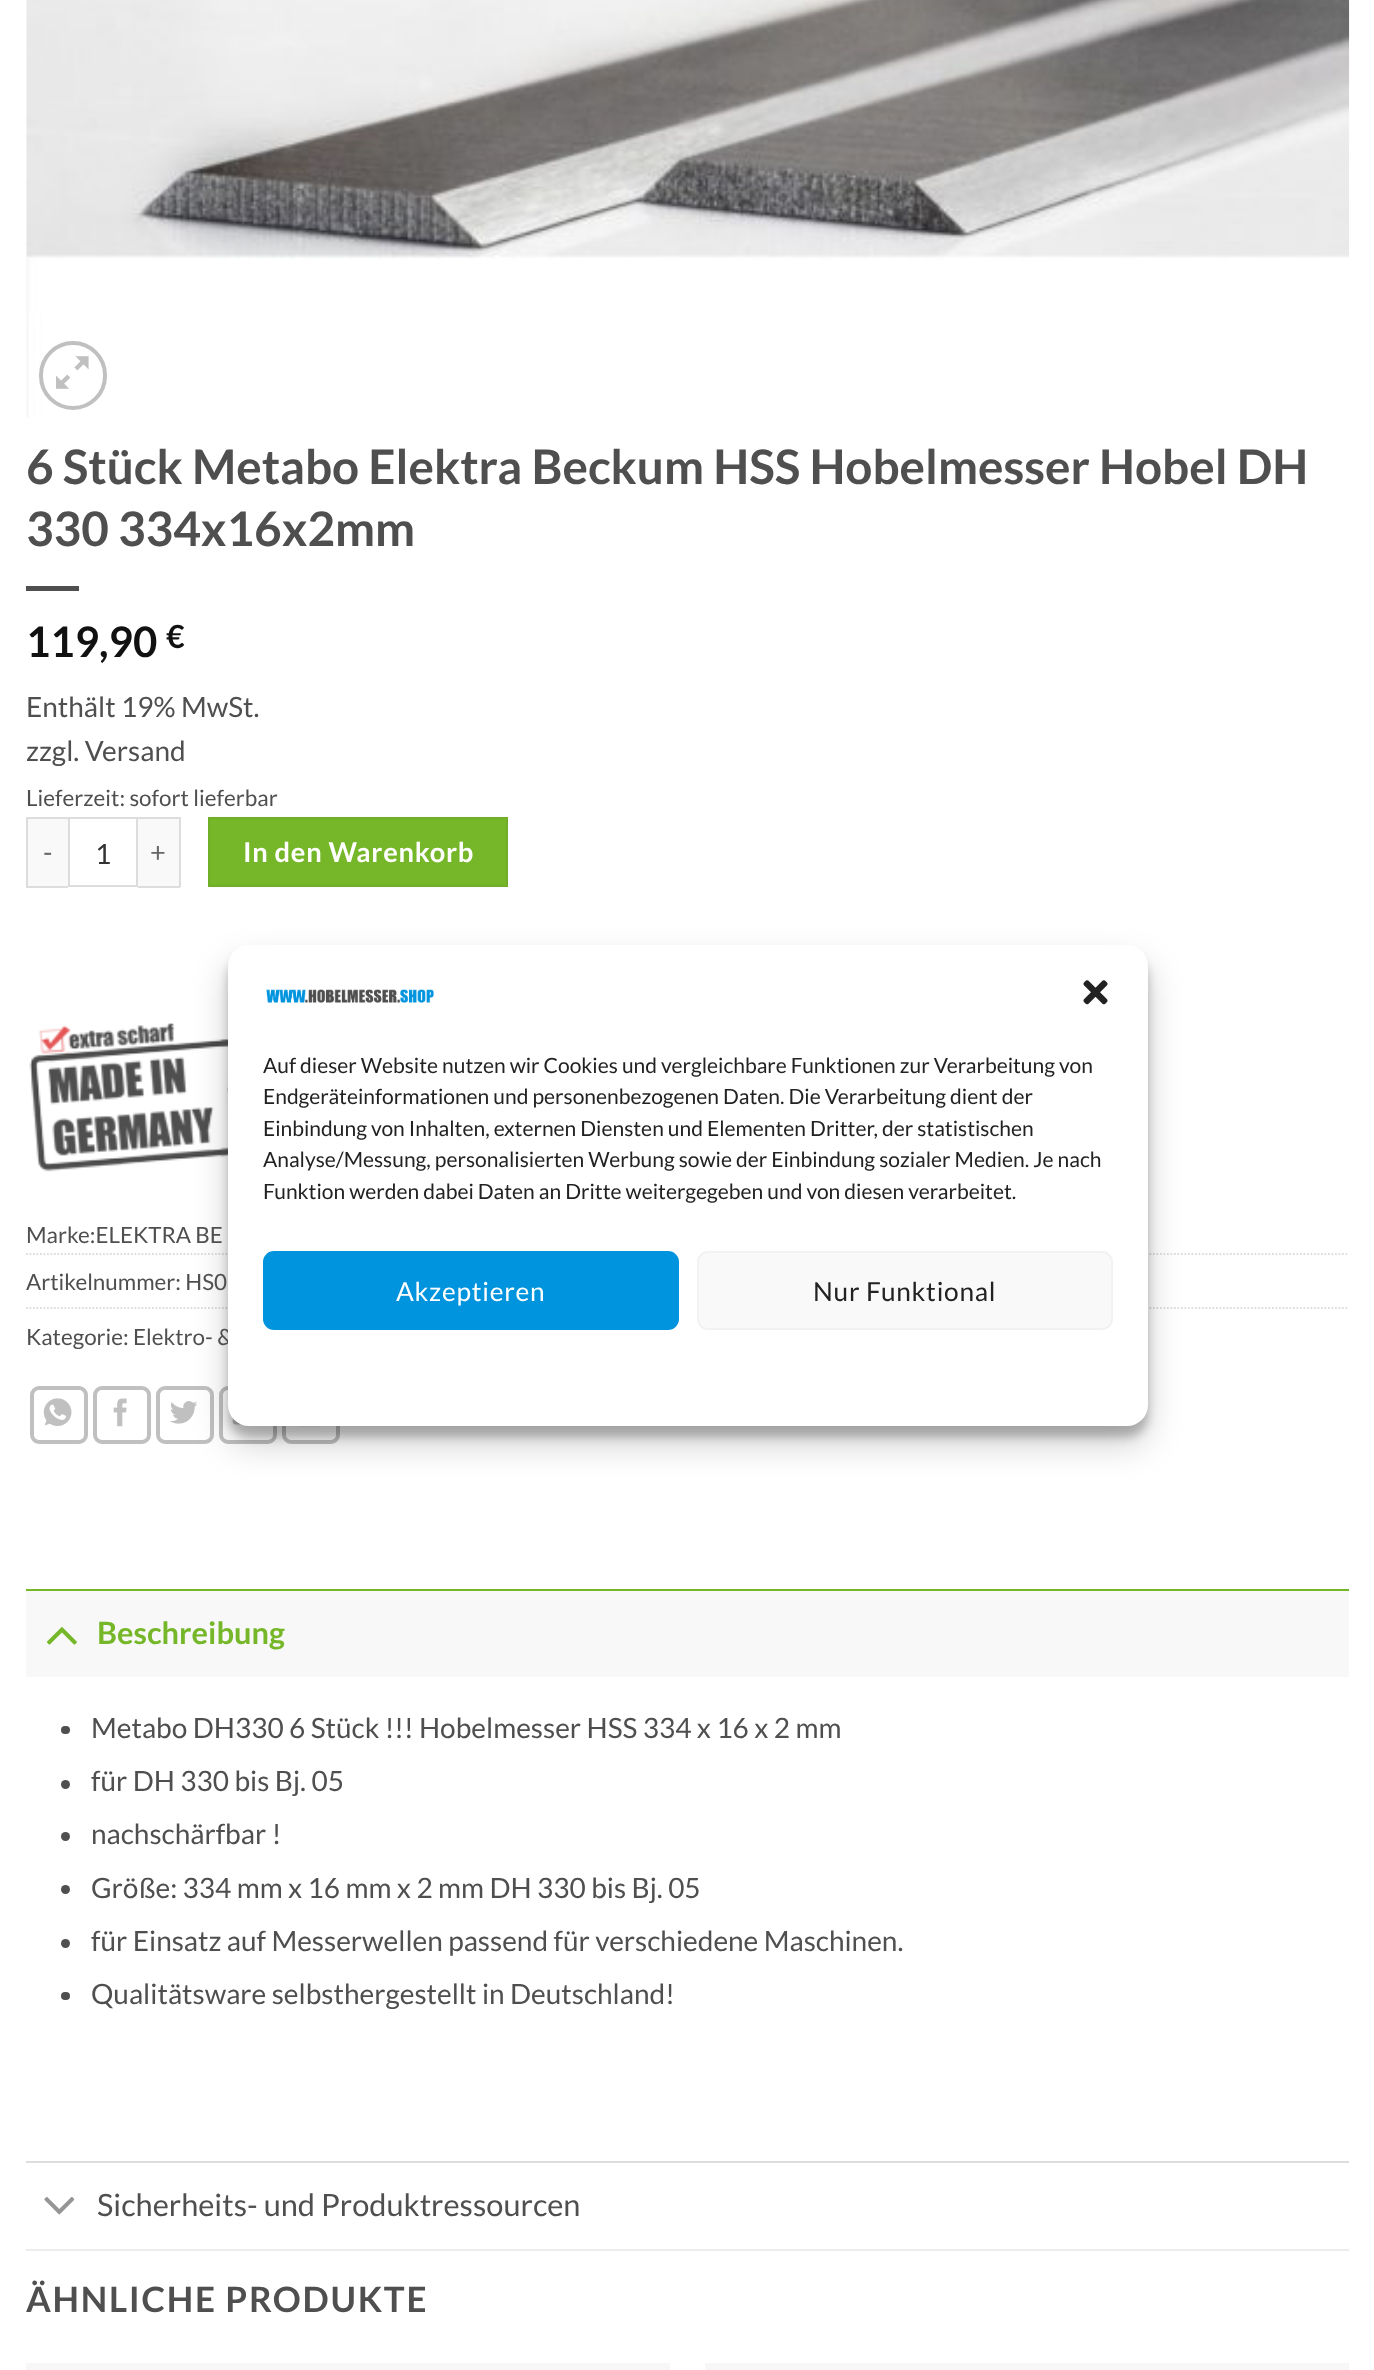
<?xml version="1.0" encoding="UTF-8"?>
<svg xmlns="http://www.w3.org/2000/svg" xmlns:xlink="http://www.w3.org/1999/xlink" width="1374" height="2370">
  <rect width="100%" height="100%" fill="#ffffff" />
  <image x="26" y="0" width="1324" height="418" xlink:href="image1.png" />
  <rect x="41" y="343" width="64" height="65" rx="32" fill="none" stroke="#c0c0c0" stroke-width="4" />
  <image x="56" y="356" width="33" height="33" xlink:href="image2.png" />
  <rect x="26" y="586" width="53" height="5" fill="#4f4f4f" />
  <rect x="28" y="819" width="40" height="67" fill="#f9f9f9" />
  <rect x="26" y="817" width="42" height="2" fill="#dddddd" />
  <rect x="26" y="886" width="42" height="2" fill="#dddddd" />
  <rect x="26" y="817" width="2" height="70" fill="#dddddd" />
  <rect x="69" y="818" width="68" height="68" fill="none" stroke="#dddddd" stroke-width="2" />
  <rect x="138" y="819" width="41" height="67" fill="#f9f9f9" />
  <rect x="138" y="817" width="42" height="2" fill="#dddddd" />
  <rect x="179" y="817" width="2" height="70" fill="#dddddd" />
  <rect x="138" y="886" width="42" height="2" fill="#dddddd" />
  <rect x="209" y="818" width="298" height="68" fill="#76b729" stroke="#70ae27" stroke-width="2" />
  <image x="29" y="1022" width="199" height="150" xlink:href="image3.png" />
  <path d="M 26 1254 h 1323" fill="none" stroke="#dddddd" stroke-width="1.8" stroke-dasharray="1.75 1.75" />
  <path d="M 26 1308 h 1323" fill="none" stroke="#dddddd" stroke-width="1.8" stroke-dasharray="1.75 1.75" />
  <rect x="32" y="1388" width="54" height="54" rx="7" fill="none" stroke="#c0c0c0" stroke-width="4" />
  <image x="43" y="1398" width="29" height="28" xlink:href="image4.png" />
  <rect x="95" y="1388" width="54" height="54" rx="7" fill="none" stroke="#c0c0c0" stroke-width="4" />
  <image x="113" y="1398" width="14" height="29" xlink:href="image5.png" />
  <rect x="158" y="1388" width="54" height="54" rx="7" fill="none" stroke="#c0c0c0" stroke-width="4" />
  <image x="170" y="1401" width="27" height="23" xlink:href="image6.png" />
  <rect x="221" y="1388" width="54" height="54" rx="7" fill="none" stroke="#c0c0c0" stroke-width="4" />
  <image x="232" y="1417" width="11" height="8" xlink:href="image7.png" />
  <rect x="284" y="1388" width="54" height="54" rx="7" fill="none" stroke="#c0c0c0" stroke-width="4" />
  <image x="299" y="1426" width="21" height="1" xlink:href="image8.png" />
  <rect x="26" y="1591" width="1323" height="86" fill="#f8f8f8" />
  <rect x="26" y="1589" width="1323" height="2" fill="#76b729" />
  <image x="47" y="1627" width="30" height="18" xlink:href="image9.png" />
  <rect x="61" y="1726" width="9" height="8" rx="4" fill="#4f4f4f" />
  <circle cx="65.5" cy="1784.5" r="4.5" fill="#4f4f4f" />
  <circle cx="65.5" cy="1836.5" r="4.5" fill="#4f4f4f" />
  <circle cx="65.5" cy="1889.5" r="4.5" fill="#4f4f4f" />
  <circle cx="65.5" cy="1943.5" r="4.5" fill="#4f4f4f" />
  <rect x="61" y="1992" width="9" height="8" rx="4" fill="#4f4f4f" />
  <rect x="26" y="2161" width="1323" height="2" fill="#dddddd" />
  <image x="44" y="2197" width="31" height="18" xlink:href="image10.png" />
  <rect x="26" y="2249" width="1323" height="2" fill="#ececec" />
  <rect x="26" y="2363" width="644" height="7" fill="#f7f7f7" />
  <rect x="705" y="2363" width="644" height="7" fill="#f7f7f7" />
  <rect x="228" y="956" width="920" height="481" rx="21" fill="#000000" fill-opacity="0.23" filter="blur(5px)" />
  <rect x="228" y="963" width="920" height="481" rx="21" fill="#000000" fill-opacity="0.19" filter="blur(17.5px)" />
  <text x="26" y="484" style="font-family: Lato; font-size: 47.6px; font-weight: bold; fill: #4f4f4f">6 Stück Metabo Elektra Beckum HSS Hobelmesser Hobel DH</text>
  <text x="26" y="546" style="font-family: Lato; font-size: 47.6px; font-weight: bold; fill: #4f4f4f">330 334x16x2mm</text>
  <text x="26" y="657" style="font-family: Lato; font-size: 42px; font-weight: bold; fill: #111111">119,90</text>
  <text x="166" y="648" style="font-family: Lato; font-size: 32px; font-weight: bold; fill: #111111">€</text>
  <text x="26" y="717" style="font-family: Lato; font-size: 28px; fill: #4f4f4f">Enthält 19% MwSt.</text>
  <text x="26" y="761" style="font-family: Lato; font-size: 28px; fill: #4f4f4f">zzgl. Versand</text>
  <text x="26" y="806" style="font-family: Lato; font-size: 22.4px; fill: #4f4f4f">Lieferzeit: sofort lieferbar</text>
  <text x="43" y="862" style="font-family: Lato; font-size: 27.25px; letter-spacing: 0.75px; fill: #666666">-</text>
  <text x="95" y="864" style="font-family: Lato; font-size: 28px; fill: #333333">1</text>
  <text x="150" y="862" style="font-family: Lato; font-size: 27.25px; letter-spacing: 0.75px; fill: #666666">+</text>
  <text x="243" y="862" style="font-family: Lato; font-size: 27.25px; font-weight: bold; letter-spacing: 0.75px; fill: #ffffff">In den Warenkorb</text>
  <text x="26" y="1243" style="font-family: Lato; font-size: 22.4px; fill: #4f4f4f">Marke:ELEKTRA BE</text>
  <text x="26" y="1290" style="font-family: Lato; font-size: 22.4px; fill: #4f4f4f">Artikelnummer: HS0</text>
  <text x="26" y="1345" style="font-family: Lato; font-size: 22.4px; fill: #4f4f4f">Kategorie: Elektro- &amp;</text>
  <text x="97" y="1644" style="font-family: Lato; font-size: 30.75px; font-weight: bold; fill: #76b729">Beschreibung</text>
  <text x="91" y="1738" style="font-family: Lato; font-size: 28px; fill: #4f4f4f">Metabo DH330 6 Stück !!! Hobelmesser HSS 334 x 16 x 2 mm</text>
  <text x="91" y="1791" style="font-family: Lato; font-size: 28px; fill: #4f4f4f">für DH 330 bis Bj. 05</text>
  <text x="91" y="1844" style="font-family: Lato; font-size: 28px; fill: #4f4f4f">nachschärfbar !</text>
  <text x="91" y="1898" style="font-family: Lato; font-size: 28px; fill: #4f4f4f">Größe: 334 mm x 16 mm x 2 mm DH 330 bis Bj. 05</text>
  <text x="91" y="1951" style="font-family: Lato; font-size: 28px; fill: #4f4f4f">für Einsatz auf Messerwellen passend für verschiedene Maschinen.</text>
  <text x="91" y="2004" style="font-family: Lato; font-size: 28px; fill: #4f4f4f">Qualitätsware selbsthergestellt in Deutschland!</text>
  <text x="97" y="2216" style="font-family: Lato; font-size: 30.75px; fill: #4f4f4f">Sicherheits- und Produktressourcen</text>
  <text x="26" y="2312" style="font-family: Lato; font-size: 35px; font-weight: bold; letter-spacing: 1.75px; fill: #4f4f4f">ÄHNLICHE PRODUKTE</text>
  <rect x="228" y="945" width="920" height="481" rx="21" fill="#ffffff" />
  <image x="266" y="989" width="168" height="14" xlink:href="image11.png" />
  <image x="1083" y="980" width="25" height="25" xlink:href="image12.png" />
  <text x="263" y="1073" style="font-family: Lato; font-size: 21px; fill: #222222">Auf dieser Website nutzen wir Cookies und vergleichbare Funktionen zur Verarbeitung von</text>
  <text x="263" y="1104" style="font-family: Lato; font-size: 21px; fill: #222222">Endgeräteinformationen und personenbezogenen Daten. Die Verarbeitung dient der</text>
  <text x="263" y="1136" style="font-family: Lato; font-size: 21px; fill: #222222">Einbindung von Inhalten, externen Diensten und Elementen Dritter, der statistischen</text>
  <text x="263" y="1167" style="font-family: Lato; font-size: 21px; fill: #222222">Analyse/Messung, personalisierten Werbung sowie der Einbindung sozialer Medien. Je nach</text>
  <text x="263" y="1199" style="font-family: Lato; font-size: 21px; fill: #222222">Funktion werden dabei Daten an Dritte weitergegeben und von diesen verarbeitet.</text>
  <rect x="264" y="1252" width="414" height="77" rx="10" fill="#0094de" stroke="#0094de" stroke-width="2" />
  <text x="396" y="1301" style="font-family: Lato; font-size: 26.25px; letter-spacing: 0.75px; fill: #ffffff">Akzeptieren</text>
  <rect x="698" y="1252" width="414" height="77" rx="10" fill="#f9f9f9" stroke="#f2f2f2" stroke-width="2" />
  <text x="813" y="1301" style="font-family: Lato; font-size: 26.25px; letter-spacing: 0.75px; fill: #222222">Nur Funktional</text>
</svg>
